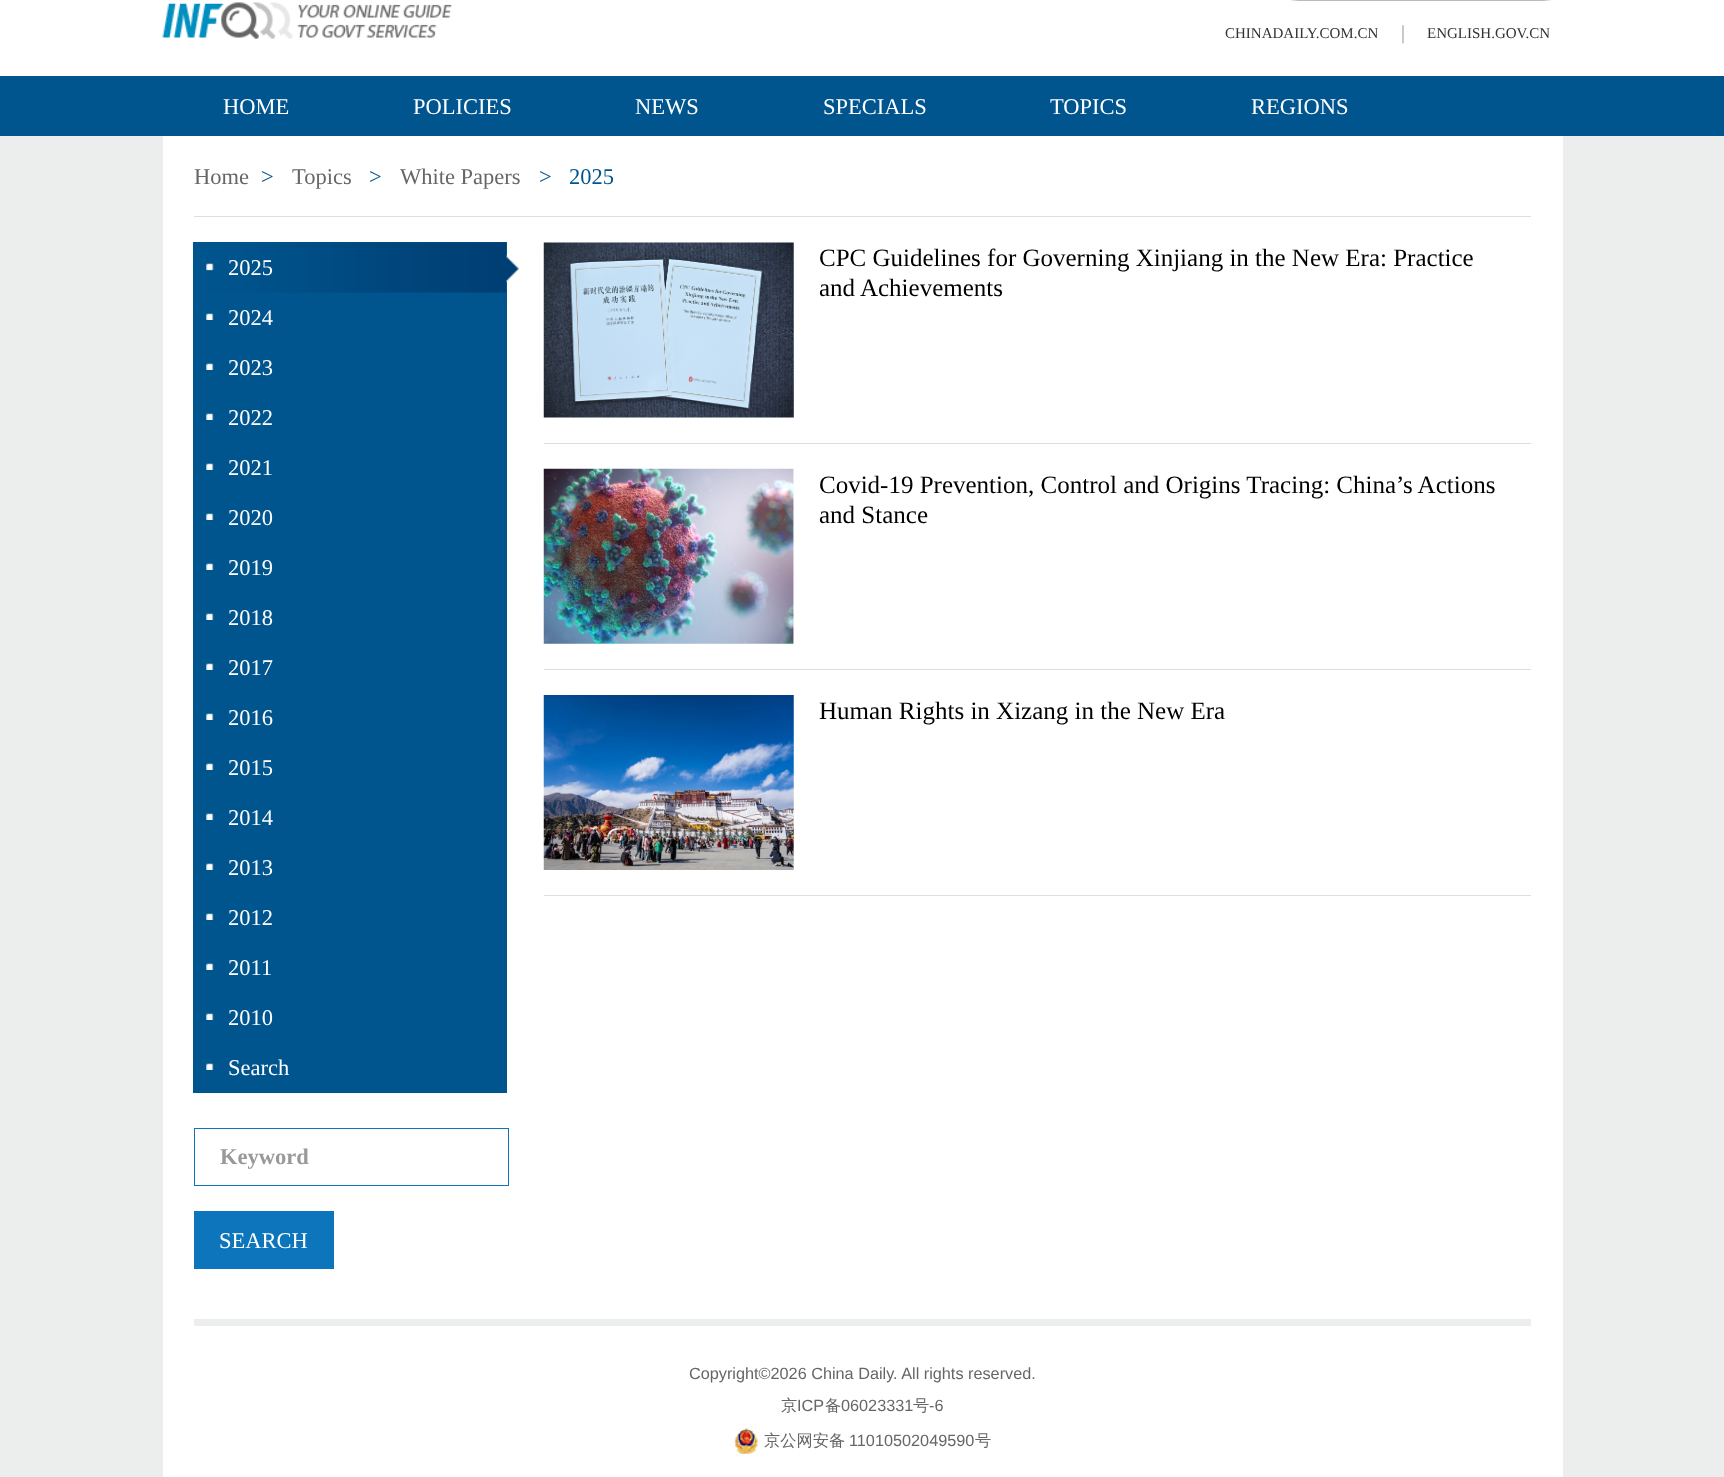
<?xml version="1.0" encoding="UTF-8"?>
<svg xmlns="http://www.w3.org/2000/svg" xmlns:xlink="http://www.w3.org/1999/xlink" width="1724" height="1477">
  <rect width="100%" height="100%" fill="#eceded" />
  <rect width="1724" height="76" fill="#ffffff" />
  <image x="162" y="2" width="290" height="37" xlink:href="image1.png" />
  <rect x="1279.5" y="-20.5" width="283" height="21" rx="19.5" fill="none" stroke="#bbbbbb" />
  <rect y="76" width="1724" height="60" fill="#00558e" />
  <rect x="163" y="136" width="1400" height="1341" fill="#ffffff" />
  <rect x="194" y="216" width="1337" height="1" fill="#dedede" />
  <rect x="193" y="242" width="314" height="851" fill="#00558e" />
  <image x="206" y="242" width="313" height="51" xlink:href="image2.png" />
  <image x="206" y="313" width="8" height="7" xlink:href="image3.png" />
  <image x="206" y="363" width="8" height="7" xlink:href="image3.png" />
  <image x="206" y="413" width="8" height="7" xlink:href="image3.png" />
  <image x="206" y="463" width="8" height="7" xlink:href="image3.png" />
  <image x="206" y="513" width="8" height="7" xlink:href="image3.png" />
  <image x="206" y="563" width="8" height="7" xlink:href="image3.png" />
  <image x="206" y="613" width="8" height="7" xlink:href="image3.png" />
  <image x="206" y="663" width="8" height="7" xlink:href="image3.png" />
  <image x="206" y="713" width="8" height="7" xlink:href="image3.png" />
  <image x="206" y="763" width="8" height="7" xlink:href="image3.png" />
  <image x="206" y="813" width="8" height="7" xlink:href="image3.png" />
  <image x="206" y="863" width="8" height="7" xlink:href="image3.png" />
  <image x="206" y="913" width="8" height="7" xlink:href="image3.png" />
  <image x="206" y="963" width="8" height="7" xlink:href="image3.png" />
  <image x="206" y="1013" width="8" height="7" xlink:href="image3.png" />
  <image x="206" y="1063" width="8" height="7" xlink:href="image3.png" />
  <rect x="194.5" y="1128.5" width="314" height="57" fill="none" stroke="#0c75bb" />
  <rect x="194" y="1211" width="140" height="58" fill="#0c75bb" />
  <rect x="544" y="443" width="987" height="1" fill="#dedede" />
  <image x="543" y="242" width="251" height="176" xlink:href="image4.png" />
  <rect x="544" y="669" width="987" height="1" fill="#dedede" />
  <image x="543" y="468" width="251" height="176" xlink:href="image5.png" />
  <rect x="544" y="895" width="987" height="1" fill="#dedede" />
  <image x="543" y="695" width="251" height="175" xlink:href="image6.png" />
  <rect x="194" y="1319" width="1337" height="7" fill="#eceded" />
  <image x="734" y="1428" width="24" height="26" xlink:href="image7.png" />
  <text x="1225" y="38" style="font-family: Liberation Serif; font-size: 15px; fill: #333333">CHINADAILY.COM.CN</text>
  <text x="1401" y="39" style="font-family: Liberation Serif; font-size: 20px; fill: #999999">|</text>
  <text x="1427" y="38" style="font-family: Liberation Serif; font-size: 15px; fill: #333333">ENGLISH.GOV.CN</text>
  <text x="223" y="114" style="font-family: Liberation Serif; font-size: 22.5px; fill: #ffffff">HOME</text>
  <text x="413" y="114" style="font-family: Liberation Serif; font-size: 22.5px; fill: #ffffff">POLICIES</text>
  <text x="635" y="114" style="font-family: Liberation Serif; font-size: 22.5px; fill: #ffffff">NEWS</text>
  <text x="823" y="114" style="font-family: Liberation Serif; font-size: 22.5px; fill: #ffffff">SPECIALS</text>
  <text x="1050" y="114" style="font-family: Liberation Serif; font-size: 22.5px; fill: #ffffff">TOPICS</text>
  <text x="1251" y="114" style="font-family: Liberation Serif; font-size: 22.5px; fill: #ffffff">REGIONS</text>
  <text x="194" y="184" style="font-family: Liberation Serif; font-size: 22.5px; fill: #666666">Home</text>
  <text x="261" y="184" style="font-family: Liberation Serif; font-size: 22.5px; fill: #00558e">&gt;</text>
  <text x="292" y="184" style="font-family: Liberation Serif; font-size: 22.5px; fill: #666666">Topics</text>
  <text x="369" y="184" style="font-family: Liberation Serif; font-size: 22.5px; fill: #00558e">&gt;</text>
  <text x="400" y="184" style="font-family: Liberation Serif; font-size: 22.5px; fill: #666666">White Papers</text>
  <text x="539" y="184" style="font-family: Liberation Serif; font-size: 22.5px; fill: #00558e">&gt;</text>
  <text x="569" y="184" style="font-family: Liberation Serif; font-size: 22.5px; fill: #00558e">2025</text>
  <text x="228" y="275" style="font-family: Liberation Serif; font-size: 22.5px; fill: #ffffff">2025</text>
  <text x="228" y="325" style="font-family: Liberation Serif; font-size: 22.5px; fill: #ffffff">2024</text>
  <text x="228" y="375" style="font-family: Liberation Serif; font-size: 22.5px; fill: #ffffff">2023</text>
  <text x="228" y="425" style="font-family: Liberation Serif; font-size: 22.5px; fill: #ffffff">2022</text>
  <text x="228" y="475" style="font-family: Liberation Serif; font-size: 22.5px; fill: #ffffff">2021</text>
  <text x="228" y="525" style="font-family: Liberation Serif; font-size: 22.5px; fill: #ffffff">2020</text>
  <text x="228" y="575" style="font-family: Liberation Serif; font-size: 22.5px; fill: #ffffff">2019</text>
  <text x="228" y="625" style="font-family: Liberation Serif; font-size: 22.5px; fill: #ffffff">2018</text>
  <text x="228" y="675" style="font-family: Liberation Serif; font-size: 22.5px; fill: #ffffff">2017</text>
  <text x="228" y="725" style="font-family: Liberation Serif; font-size: 22.5px; fill: #ffffff">2016</text>
  <text x="228" y="775" style="font-family: Liberation Serif; font-size: 22.5px; fill: #ffffff">2015</text>
  <text x="228" y="825" style="font-family: Liberation Serif; font-size: 22.5px; fill: #ffffff">2014</text>
  <text x="228" y="875" style="font-family: Liberation Serif; font-size: 22.5px; fill: #ffffff">2013</text>
  <text x="228" y="925" style="font-family: Liberation Serif; font-size: 22.5px; fill: #ffffff">2012</text>
  <text x="228" y="975" style="font-family: Liberation Serif; font-size: 22.5px; fill: #ffffff">2011</text>
  <text x="228" y="1025" style="font-family: Liberation Serif; font-size: 22.5px; fill: #ffffff">2010</text>
  <text x="228" y="1075" style="font-family: Liberation Serif; font-size: 22.5px; fill: #ffffff">Search</text>
  <text x="220" y="1164" style="font-family: Liberation Serif; font-size: 22.5px; font-weight: bold; fill: #999999">Keyword</text>
  <text x="219" y="1248" style="font-family: Liberation Serif; font-size: 22.5px; fill: #ffffff">SEARCH</text>
  <text x="819" y="266" style="font-family: Liberation Serif; font-size: 25px; fill: #000000">CPC Guidelines for Governing Xinjiang in the New Era: Practice</text>
  <text x="819" y="296" style="font-family: Liberation Serif; font-size: 25px; fill: #000000">and Achievements</text>
  <text x="819" y="493" style="font-family: Liberation Serif; font-size: 25px; fill: #000000">Covid-19 Prevention, Control and Origins Tracing: China’s Actions</text>
  <text x="819" y="523" style="font-family: Liberation Serif; font-size: 25px; fill: #000000">and Stance</text>
  <text x="819" y="719" style="font-family: Liberation Serif; font-size: 25px; fill: #000000">Human Rights in Xizang in the New Era</text>
  <text x="689" y="1379" style="font-family: Liberation Sans; font-size: 16.25px; fill: #666666">Copyright©2026 China Daily. All rights reserved.</text>
  <text x="781" y="1411" style="font-family: WenQuanYi Zen Hei; font-size: 16.25px; font-weight: 500; fill: #666666">京</text>
  <text x="797" y="1411" style="font-family: Liberation Sans; font-size: 16.25px; fill: #666666">ICP</text>
  <text x="825" y="1411" style="font-family: WenQuanYi Zen Hei; font-size: 16.25px; font-weight: 500; fill: #666666">备</text>
  <text x="841" y="1411" style="font-family: Liberation Sans; font-size: 16.25px; fill: #666666">06023331</text>
  <text x="913" y="1411" style="font-family: WenQuanYi Zen Hei; font-size: 16.25px; font-weight: 500; fill: #666666">号</text>
  <text x="929" y="1411" style="font-family: Liberation Sans; font-size: 16.25px; fill: #666666">-6</text>
  <text x="764" y="1446" style="font-family: WenQuanYi Zen Hei; font-size: 16.25px; font-weight: 500; fill: #666666">京公网安备</text>
  <text x="849" y="1446" style="font-family: Liberation Sans; font-size: 16.25px; fill: #666666">11010502049590</text>
  <text x="975" y="1446" style="font-family: WenQuanYi Zen Hei; font-size: 16.25px; font-weight: 500; fill: #666666">号</text>
</svg>
